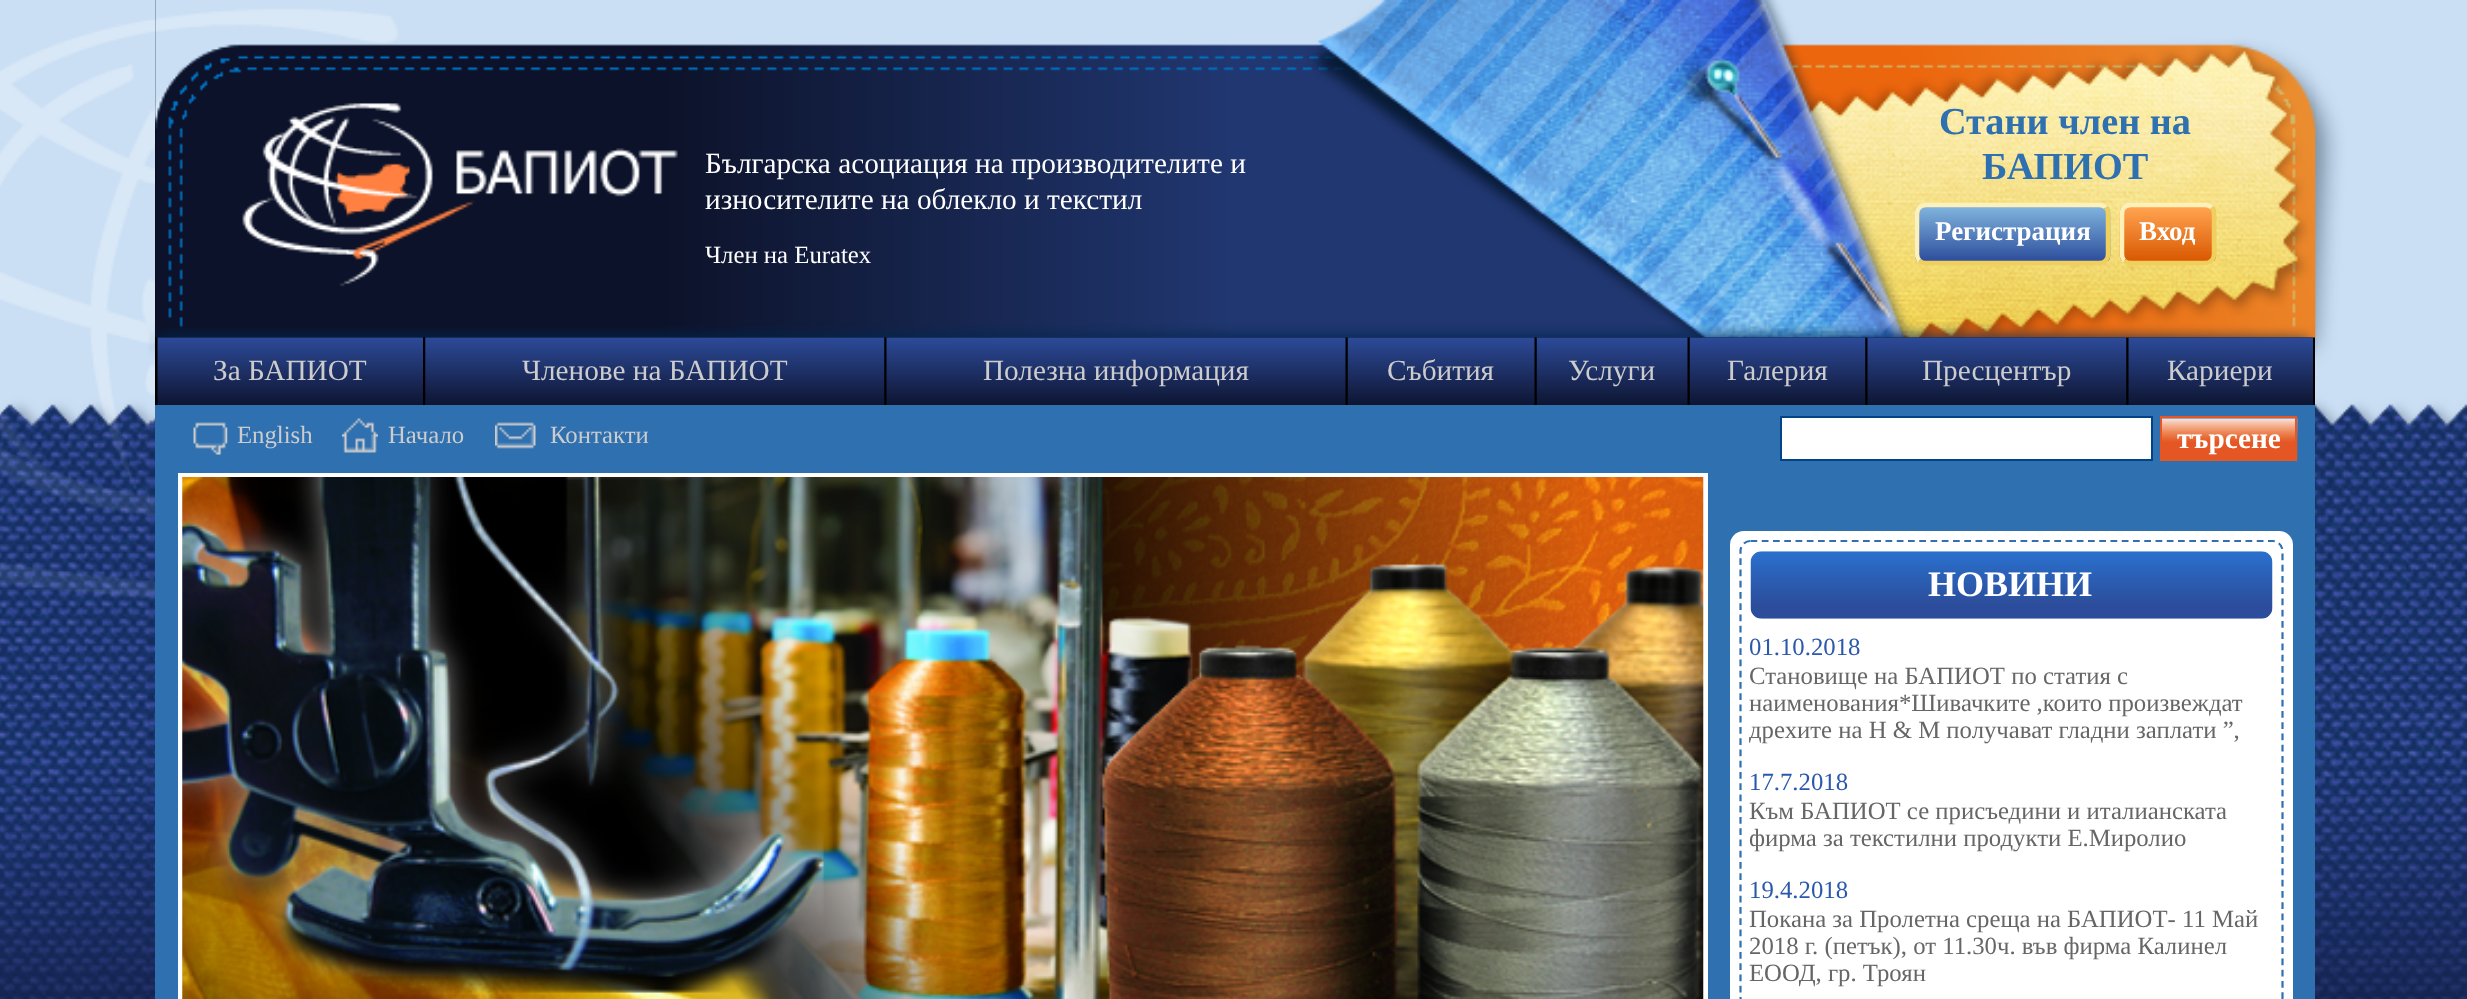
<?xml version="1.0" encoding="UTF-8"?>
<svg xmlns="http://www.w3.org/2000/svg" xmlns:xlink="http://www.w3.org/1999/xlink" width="2467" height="999">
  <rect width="100%" height="100%" fill="#ffffff" />
  <image x="0" y="0" width="2467" height="999" xlink:href="image1.png" />
  <rect x="155" y="405" width="2160" height="594" fill="#2f70b0" />
  <rect x="155" width="2160" height="405" fill="#000000" />
  <image x="155" y="0" width="2161" height="338" xlink:href="image2.png" />
  <image x="1914" y="207" width="197" height="54" xlink:href="image3.png" />
  <path d="M 2105.5 207.5 c 2 1.5 2.5 4 2.5 6.5 v 40 c 0 2.5 -0.5 5 -2.5 6.5 c -1.5 2 -4 2.5 -6.5 2.5 h -173 c -2.5 0 -4.5 -0.5 -6.5 -2.5" fill="none" stroke="#efcf5e" stroke-width="4.5" />
  <path d="M 1919.5 260.5 c -1.5 -1.5 -2.5 -4 -2.5 -6.5 v -40 c 0 -2.5 1 -5 2.5 -6.5 c 2 -2 4 -2.5 6.5 -2.5 h 173 c 2.5 0 5 0.5 6.5 2.5" fill="none" stroke="#fdf1b9" stroke-width="4.5" />
  <image x="2119" y="207" width="98" height="54" xlink:href="image4.png" />
  <path d="M 2211.5 207.5 c 1.5 1.5 2.5 4 2.5 6.5 v 40 c 0 2.5 -1 5 -2.5 6.5 c -2 2 -4 2.5 -6.5 2.5 h -74 c -2.5 0 -5 -0.5 -6.5 -2.5" fill="none" stroke="#efcf5e" stroke-width="4.5" />
  <path d="M 2124.5 260.5 c -2 -1.5 -2.5 -4 -2.5 -6.5 v -40 c 0 -2.5 0.5 -5 2.5 -6.5 c 1.5 -2 4 -2.5 6.5 -2.5 h 74 c 2.5 0 4.5 0.5 6.5 2.5" fill="none" stroke="#fdf1b9" stroke-width="4.5" />
  <image x="157" y="337" width="266" height="68" xlink:href="image5.png" />
  <image x="425" y="337" width="460" height="68" xlink:href="image6.png" />
  <image x="886" y="337" width="460" height="68" xlink:href="image7.png" />
  <image x="1347" y="337" width="188" height="68" xlink:href="image8.png" />
  <image x="1536" y="337" width="152" height="68" xlink:href="image9.png" />
  <image x="1689" y="337" width="177" height="68" xlink:href="image10.png" />
  <image x="1867" y="337" width="260" height="68" xlink:href="image11.png" />
  <image x="2128" y="337" width="185" height="68" xlink:href="image12.png" />
  <image x="193" y="422" width="35" height="33" xlink:href="image13.png" />
  <image x="342" y="418" width="36" height="35" xlink:href="image14.png" />
  <image x="495" y="422" width="41" height="27" xlink:href="image15.png" />
  <rect x="1781" y="417" width="371" height="43" fill="#ffffff" stroke="#004487" stroke-width="2" />
  <image x="2162" y="418" width="136" height="41" xlink:href="image16.png" />
  <rect x="2161" y="417" width="135" height="43" fill="none" stroke="#e45724" stroke-width="2" />
  <rect x="178" y="473" width="1530" height="526" fill="#ffffff" />
  <image x="182" y="477" width="1522" height="522" xlink:href="image17.png" />
  <rect x="1730" y="531" width="563" height="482" rx="14" fill="#ffffff" />
  <path d="M 1750.5 541 h 522 c 5.5 0 10 4.5 10 10 v 446 c 0 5.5 -4.5 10 -10 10 h -522 c -5.5 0 -10 -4.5 -10 -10 v -446 c 0 -5.5 4.5 -10 10 -10 z" fill="none" stroke="#2f70b0" stroke-width="2.2" stroke-dasharray="6.75 4.5" />
  <image x="1750" y="551" width="523" height="68" xlink:href="image18.png" />
  <text x="705" y="173" style="font-family: Liberation Serif; font-size: 29.25px; fill: #ffffff">Българска асоциация на производителите и</text>
  <text x="705" y="209" style="font-family: Liberation Serif; font-size: 29.25px; fill: #ffffff">износителите на облекло и текстил</text>
  <text x="705" y="263" style="font-family: Liberation Serif; font-size: 24.75px; fill: #ffffff">Член на Euratex</text>
  <text x="1939" y="134" style="font-family: Liberation Serif; font-size: 38.25px; font-weight: bold; fill: #2f70b0">Стани член на</text>
  <text x="1982" y="179" style="font-family: Liberation Serif; font-size: 38.25px; font-weight: bold; fill: #2f70b0">БАПИОТ</text>
  <text x="1935" y="240" style="font-family: Liberation Serif; font-size: 27px; font-weight: bold; fill: #ffffff">Регистрация</text>
  <text x="2139" y="240" style="font-family: Liberation Serif; font-size: 27px; font-weight: bold; fill: #ffffff">Вход</text>
  <text x="213" y="380" style="font-family: Liberation Serif; font-size: 29.25px; fill: #cccccc">За БАПИОТ</text>
  <text x="522" y="380" style="font-family: Liberation Serif; font-size: 29.25px; fill: #cccccc">Членове на БАПИОТ</text>
  <text x="983" y="380" style="font-family: Liberation Serif; font-size: 29.25px; fill: #cccccc">Полезна информация</text>
  <text x="1387" y="380" style="font-family: Liberation Serif; font-size: 29.25px; fill: #cccccc">Събития</text>
  <text x="1568" y="380" style="font-family: Liberation Serif; font-size: 29.25px; fill: #cccccc">Услуги</text>
  <text x="1727" y="380" style="font-family: Liberation Serif; font-size: 29.25px; fill: #cccccc">Галерия</text>
  <text x="1922" y="380" style="font-family: Liberation Serif; font-size: 29.25px; fill: #cccccc">Пресцентър</text>
  <text x="2167" y="380" style="font-family: Liberation Serif; font-size: 29.25px; fill: #cccccc">Кариери</text>
  <text x="237" y="443" style="font-family: Liberation Serif; font-size: 24.75px; fill: #cccccc">English</text>
  <text x="388" y="443" style="font-family: Liberation Serif; font-size: 24.75px; fill: #cccccc">Начало</text>
  <text x="550" y="443" style="font-family: Liberation Serif; font-size: 24.75px; fill: #cccccc">Контакти</text>
  <text x="2177" y="448" style="font-family: Liberation Serif; font-size: 29.25px; font-weight: bold; fill: #ffffff">търсене</text>
  <text x="1928" y="596" style="font-family: Liberation Serif; font-size: 36px; font-weight: bold; fill: #ffffff">НОВИНИ</text>
  <text x="1749" y="655" style="font-family: Liberation Serif; font-size: 24.75px; fill: #2b58ac">01.10.2018</text>
  <text x="1749" y="684" style="font-family: Liberation Serif; font-size: 24.75px; fill: #666666">Становище на БАПИОТ по статия с</text>
  <text x="1749" y="711" style="font-family: Liberation Serif; font-size: 24.75px; fill: #666666">наименования*Шивачките ,които произвеждат</text>
  <text x="1749" y="738" style="font-family: Liberation Serif; font-size: 24.75px; fill: #666666">дрехите на Н &amp; М получават гладни заплати ”,</text>
  <text x="1749" y="790" style="font-family: Liberation Serif; font-size: 24.75px; fill: #2b58ac">17.7.2018</text>
  <text x="1749" y="819" style="font-family: Liberation Serif; font-size: 24.75px; fill: #666666">Към БАПИОТ се присъедини и италианската</text>
  <text x="1749" y="846" style="font-family: Liberation Serif; font-size: 24.75px; fill: #666666">фирма за текстилни продукти Е.Миролио</text>
  <text x="1749" y="898" style="font-family: Liberation Serif; font-size: 24.75px; fill: #2b58ac">19.4.2018</text>
  <text x="1749" y="927" style="font-family: Liberation Serif; font-size: 24.75px; fill: #666666">Покана за Пролетна среща на БАПИОТ- 11 Май</text>
  <text x="1749" y="954" style="font-family: Liberation Serif; font-size: 24.75px; fill: #666666">2018 г. (петък), от 11.30ч. във фирма Калинел</text>
  <text x="1749" y="981" style="font-family: Liberation Serif; font-size: 24.75px; fill: #666666">ЕООД, гр. Троян</text>
</svg>
